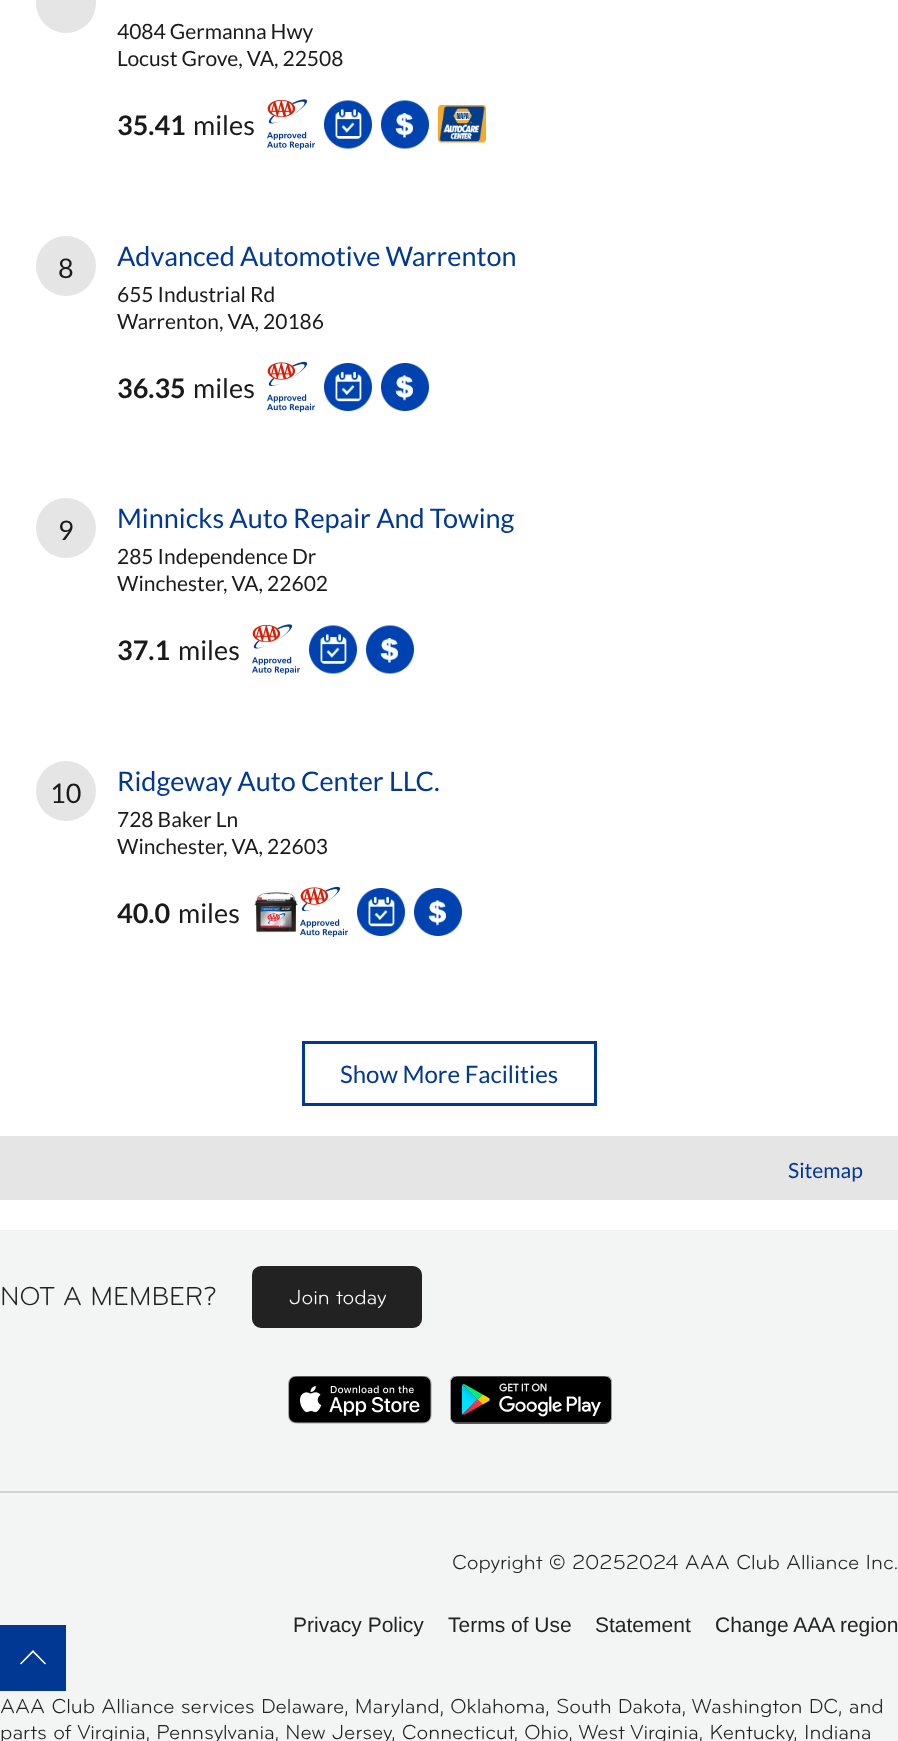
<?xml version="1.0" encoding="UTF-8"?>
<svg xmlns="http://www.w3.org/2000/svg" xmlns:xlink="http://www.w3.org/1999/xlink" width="898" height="1741">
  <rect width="100%" height="100%" fill="#ffffff" />
  <circle cx="66" cy="3" r="30" fill="#e5e5e5" />
  <image x="267" y="99" width="48" height="51" xlink:href="image1.png" />
  <image x="324" y="100" width="48" height="49" xlink:href="image2.png" />
  <image x="381" y="100" width="48" height="49" xlink:href="image3.png" />
  <image x="438" y="105" width="48" height="38" xlink:href="image4.png" />
  <circle cx="66" cy="266" r="30" fill="#e5e5e5" />
  <image x="267" y="361" width="48" height="51" xlink:href="image5.png" />
  <image x="324" y="363" width="48" height="48" xlink:href="image6.png" />
  <image x="381" y="363" width="48" height="48" xlink:href="image7.png" />
  <circle cx="66" cy="528" r="30" fill="#e5e5e5" />
  <image x="252" y="624" width="48" height="51" xlink:href="image1.png" />
  <image x="309" y="625" width="48" height="49" xlink:href="image2.png" />
  <image x="366" y="625" width="48" height="49" xlink:href="image3.png" />
  <circle cx="66" cy="791" r="30" fill="#e5e5e5" />
  <image x="254" y="891" width="44" height="42" xlink:href="image8.png" />
  <image x="300" y="886" width="48" height="51" xlink:href="image5.png" />
  <image x="357" y="888" width="48" height="48" xlink:href="image6.png" />
  <image x="414" y="888" width="48" height="48" xlink:href="image7.png" />
  <rect x="303.5" y="1042.5" width="292" height="62" fill="none" stroke="#003893" stroke-width="3" />
  <rect y="1136" width="898" height="64" fill="#e5e5e5" />
  <rect y="1230" width="898" height="511" fill="#f3f4f4" />
  <rect x="252" y="1266" width="170" height="62" rx="9" fill="#222222" />
  <image x="288" y="1376" width="144" height="48" xlink:href="image9.png" />
  <image x="450" y="1376" width="162" height="48" xlink:href="image10.png" />
  <rect y="1491" width="898" height="2" fill="#d0d1d1" />
  <rect y="1625" width="66" height="66" fill="#003893" />
  <path d="M 45 1664.5 l 1 -1 l -13 -13.5 l -13 13.5 l 1 1 l 12 -12 z" fill="#ffffff" />
  <text x="117" y="39" style="font-family: Lato; font-size: 21px; fill: #1a1a1a">4084 Germanna Hwy</text>
  <text x="117" y="66" style="font-family: Lato; font-size: 21px; fill: #1a1a1a">Locust Grove, VA, 22508</text>
  <text x="117" y="135" style="font-family: Lato; font-size: 27px; font-weight: bold; fill: #1a1a1a">35.41</text>
  <text x="193" y="135" style="font-family: Lato; font-size: 27px; fill: #1a1a1a">miles</text>
  <text x="58" y="278" style="font-family: Lato; font-size: 27px; fill: #1a1a1a">8</text>
  <text x="117" y="266" style="font-family: Lato; font-size: 27px; fill: #003893">Advanced Automotive Warrenton</text>
  <text x="117" y="302" style="font-family: Lato; font-size: 21px; fill: #1a1a1a">655 Industrial Rd</text>
  <text x="117" y="329" style="font-family: Lato; font-size: 21px; fill: #1a1a1a">Warrenton, VA, 20186</text>
  <text x="117" y="398" style="font-family: Lato; font-size: 27px; font-weight: bold; fill: #1a1a1a">36.35</text>
  <text x="193" y="398" style="font-family: Lato; font-size: 27px; fill: #1a1a1a">miles</text>
  <text x="58" y="540" style="font-family: Lato; font-size: 27px; fill: #1a1a1a">9</text>
  <text x="117" y="528" style="font-family: Lato; font-size: 27px; fill: #003893">Minnicks Auto Repair And Towing</text>
  <text x="117" y="564" style="font-family: Lato; font-size: 21px; fill: #1a1a1a">285 Independence Dr</text>
  <text x="117" y="591" style="font-family: Lato; font-size: 21px; fill: #1a1a1a">Winchester, VA, 22602</text>
  <text x="117" y="660" style="font-family: Lato; font-size: 27px; font-weight: bold; fill: #1a1a1a">37.1</text>
  <text x="178" y="660" style="font-family: Lato; font-size: 27px; fill: #1a1a1a">miles</text>
  <text x="50" y="803" style="font-family: Lato; font-size: 27px; fill: #1a1a1a">10</text>
  <text x="117" y="791" style="font-family: Lato; font-size: 27px; fill: #003893">Ridgeway Auto Center LLC.</text>
  <text x="117" y="827" style="font-family: Lato; font-size: 21px; fill: #1a1a1a">728 Baker Ln</text>
  <text x="117" y="854" style="font-family: Lato; font-size: 21px; fill: #1a1a1a">Winchester, VA, 22603</text>
  <text x="117" y="923" style="font-family: Lato; font-size: 27px; font-weight: bold; fill: #1a1a1a">40.0</text>
  <text x="178" y="923" style="font-family: Lato; font-size: 27px; fill: #1a1a1a">miles</text>
  <text x="340" y="1083" style="font-family: Lato; font-size: 24px; fill: #003893">Show More Facilities</text>
  <text x="788" y="1178" style="font-family: Lato; font-size: 21px; fill: #003893">Sitemap</text>
  <text x="0" y="1305" style="font-family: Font; font-size: 27px; fill: #222222">NOT A MEMBER?</text>
  <text x="289" y="1304" style="font-family: Font; font-size: 21px; fill: #ffffff">Join today</text>
  <text x="452" y="1569" style="font-family: Font; font-size: 21px; fill: #222222">Copyright © 20252024 AAA Club Alliance Inc.</text>
  <text x="293" y="1632" style="font-family: Liberation Sans; font-size: 21px; fill: #222222">Privacy Policy</text>
  <text x="448" y="1632" style="font-family: Liberation Sans; font-size: 21px; fill: #222222">Terms of Use</text>
  <text x="595" y="1632" style="font-family: Liberation Sans; font-size: 21px; fill: #222222">Statement</text>
  <text x="715" y="1632" style="font-family: Liberation Sans; font-size: 21px; fill: #222222">Change AAA region</text>
  <text x="0" y="1713" style="font-family: Font; font-size: 21px; fill: #222222">AAA Club Alliance services Delaware, Maryland, Oklahoma, South Dakota, Washington DC, and</text>
  <text x="0" y="1739" style="font-family: Font; font-size: 21px; fill: #222222">parts of Virginia, Pennsylvania, New Jersey, Connecticut, Ohio, West Virginia, Kentucky, Indiana</text>
</svg>
